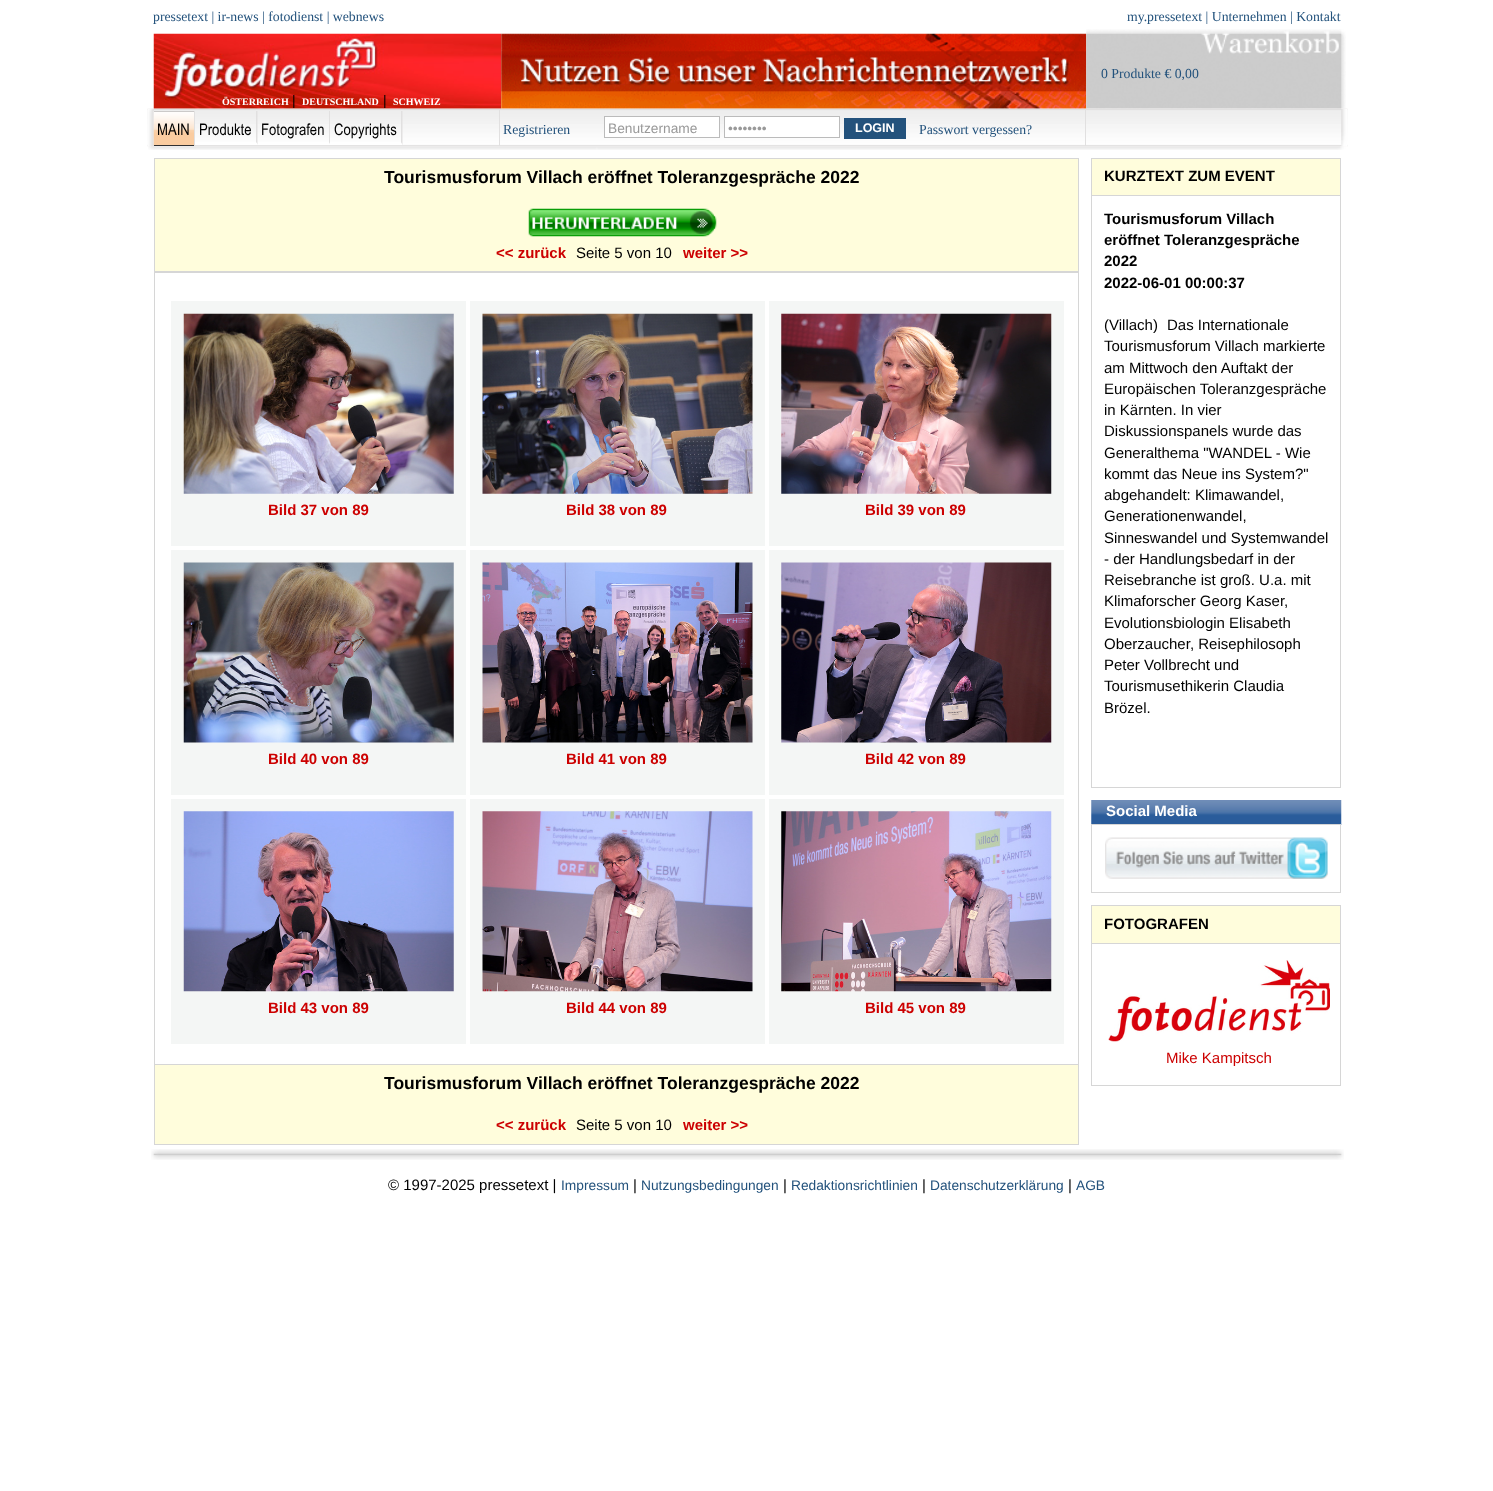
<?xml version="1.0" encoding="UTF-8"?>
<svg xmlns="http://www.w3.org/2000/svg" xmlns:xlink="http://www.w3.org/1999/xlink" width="1493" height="1491">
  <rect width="100%" height="100%" fill="#ffffff" />
  <image x="153" y="33" width="349" height="76" xlink:href="image3.png" />
  <image x="501" y="33" width="586" height="76" xlink:href="image1.png" />
  <image x="1086" y="29" width="260" height="80" xlink:href="image2.png" />
  <image x="147" y="108" width="1201" height="39" xlink:href="image4.png" />
  <image x="147" y="108" width="7" height="39" xlink:href="image5.png" />
  <rect x="154" y="111" width="40" height="35" fill="#313131" />
  <image x="153" y="111" width="41" height="34" xlink:href="image6.png" />
  <rect x="194" y="111" width="1" height="35" fill="#e1e0e0" />
  <path d="M 257.5 111 v 34 l -1.5 -2.5 v -31.5 z" fill="#e1e0e0" />
  <path d="M 258 145 h -63 v -3 h 61 z" fill="#ffffff" />
  <path d="M 330 111 v 34 l -1 -2.5 v -31.5 z" fill="#e1e0e0" />
  <path d="M 330 145 h -72 v -3 h 71 z" fill="#ffffff" />
  <path d="M 402.5 111 v 34 l -1.5 -2.5 v -31.5 z" fill="#e1e0e0" />
  <path d="M 402 145 h -72 v -3 h 71 z" fill="#ffffff" />
  <rect x="1085" y="109" width="1" height="37" fill="#e1e0e0" />
  <rect x="499" y="109" width="1" height="37" fill="#e1e0e0" />
  <rect x="604.5" y="116.5" width="115" height="21" fill="#ffffff" stroke="#bbbbbb" />
  <rect x="724.5" y="116.5" width="115" height="21" fill="#ffffff" stroke="#bbbbbb" />
  <rect x="844" y="118" width="62" height="21" fill="#23527c" />
  <image x="1341" y="109" width="7" height="37" xlink:href="image7.png" />
  <image x="148" y="146" width="1199" height="4" xlink:href="image8.png" />
  <rect x="155" y="159" width="923" height="112" fill="#fffddc" />
  <rect x="154.5" y="158.5" width="924" height="114" fill="none" stroke="#d6d6d6" />
  <image x="528" y="208" width="189" height="29" xlink:href="image9.png" />
  <rect x="154" y="271" width="925" height="1" fill="#d6d6d6" />
  <rect x="1078" y="271" width="1" height="793" fill="#d6d6d6" />
  <rect x="154" y="271" width="1" height="793" fill="#d6d6d6" />
  <rect x="171" y="301" width="295" height="245" fill="#f4f6f5" />
  <image x="183" y="313" width="271" height="181" xlink:href="image10.png" />
  <rect x="470" y="301" width="295" height="245" fill="#f4f6f5" />
  <image x="482" y="313" width="271" height="181" xlink:href="image11.png" />
  <rect x="769" y="301" width="295" height="245" fill="#f4f6f5" />
  <image x="781" y="313" width="271" height="181" xlink:href="image12.png" />
  <rect x="171" y="550" width="295" height="245" fill="#f4f6f5" />
  <image x="183" y="562" width="271" height="181" xlink:href="image13.png" />
  <rect x="470" y="550" width="295" height="245" fill="#f4f6f5" />
  <image x="482" y="562" width="271" height="181" xlink:href="image14.png" />
  <rect x="769" y="550" width="295" height="245" fill="#f4f6f5" />
  <image x="781" y="562" width="271" height="181" xlink:href="image15.png" />
  <rect x="171" y="799" width="295" height="245" fill="#f4f6f5" />
  <image x="183" y="811" width="271" height="181" xlink:href="image16.png" />
  <rect x="470" y="799" width="295" height="245" fill="#f4f6f5" />
  <image x="482" y="811" width="271" height="181" xlink:href="image17.png" />
  <rect x="769" y="799" width="295" height="245" fill="#f4f6f5" />
  <image x="781" y="811" width="271" height="181" xlink:href="image18.png" />
  <rect x="154.5" y="1064.5" width="924" height="80" fill="#fffddc" stroke="#d6d6d6" />
  <rect x="1091.5" y="158.5" width="249" height="37" fill="#fffddc" stroke="#d6d6d6" />
  <rect x="1091.5" y="195.5" width="249" height="592" fill="none" stroke="#d6d6d6" />
  <image x="1091" y="800" width="251" height="25" xlink:href="image19.png" />
  <image x="1105" y="837" width="223" height="42" xlink:href="image20.png" />
  <rect x="1091.5" y="824.5" width="249" height="68" fill="none" stroke="#d6d6d6" />
  <rect x="1091.5" y="905.5" width="249" height="38" fill="#fffddc" stroke="#d6d6d6" />
  <rect x="1091.5" y="943.5" width="249" height="142" fill="none" stroke="#d6d6d6" />
  <image x="1108" y="960" width="222" height="82" xlink:href="image21.png" />
  <image x="151" y="1149" width="1193" height="11" xlink:href="image22.png" />
  <text x="153" y="21" style="font-family: Liberation Serif; font-size: 13.75px; fill: #23527c">pressetext | ir-news | fotodienst | webnews</text>
  <text x="1127" y="21" style="font-family: Liberation Serif; font-size: 13.75px; fill: #23527c">my.pressetext | Unternehmen | Kontakt</text>
  <text x="1101" y="78" style="font-family: Liberation Serif; font-size: 13.75px; fill: #23527c">0 Produkte € 0,00</text>
  <text x="222" y="105" style="font-family: Liberation Serif; font-size: 10px; font-weight: bold; fill: #ffffff">ÖSTERREICH</text>
  <text x="292" y="105" style="font-family: Liberation Sans; font-size: 13.75px; fill: #000000">|</text>
  <text x="302" y="105" style="font-family: Liberation Serif; font-size: 10px; font-weight: bold; fill: #ffffff">DEUTSCHLAND</text>
  <text x="383" y="105" style="font-family: Liberation Sans; font-size: 13.75px; fill: #000000">|</text>
  <text x="393" y="105" style="font-family: Liberation Serif; font-size: 10px; font-weight: bold; fill: #ffffff">SCHWEIZ</text>
  <text x="157" y="135" style="font-family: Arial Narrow; font-size: 16px; fill: #000000">MAIN</text>
  <text x="199" y="135" style="font-family: Arial Narrow; font-size: 16px; fill: #000000">Produkte</text>
  <text x="261" y="135" style="font-family: Arial Narrow; font-size: 16px; fill: #000000">Fotografen</text>
  <text x="334" y="135" style="font-family: Arial Narrow; font-size: 16px; fill: #000000">Copyrights</text>
  <text x="503" y="134" style="font-family: Liberation Serif; font-size: 13.75px; fill: #23527c">Registrieren</text>
  <text x="608" y="133" style="font-family: Liberation Sans; font-size: 13.75px; fill: #999999">Benutzername</text>
  <text x="728" y="133" style="font-family: Liberation Sans; font-size: 13.75px; fill: #999999">••••••••</text>
  <text x="855" y="132" style="font-family: Liberation Sans; font-size: 12.5px; font-weight: bold; fill: #ffffff">LOGIN</text>
  <text x="919" y="134" style="font-family: Liberation Serif; font-size: 13.75px; fill: #23527c">Passwort vergessen?</text>
  <text x="384" y="183" style="font-family: Liberation Sans; font-size: 17.5px; font-weight: bold; fill: #000000">Tourismusforum Villach eröffnet Toleranzgespräche 2022</text>
  <text x="496" y="258" style="font-family: Liberation Sans; font-size: 15px; font-weight: bold; fill: #cc0000">&lt;&lt; zurück</text>
  <text x="576" y="258" style="font-family: Liberation Sans; font-size: 15px; fill: #000000">Seite 5 von 10</text>
  <text x="683" y="258" style="font-family: Liberation Sans; font-size: 15px; font-weight: bold; fill: #cc0000">weiter &gt;&gt;</text>
  <text x="268" y="515" style="font-family: Liberation Sans; font-size: 15px; font-weight: bold; fill: #cc0000">Bild 37 von 89</text>
  <text x="566" y="515" style="font-family: Liberation Sans; font-size: 15px; font-weight: bold; fill: #cc0000">Bild 38 von 89</text>
  <text x="865" y="515" style="font-family: Liberation Sans; font-size: 15px; font-weight: bold; fill: #cc0000">Bild 39 von 89</text>
  <text x="268" y="764" style="font-family: Liberation Sans; font-size: 15px; font-weight: bold; fill: #cc0000">Bild 40 von 89</text>
  <text x="566" y="764" style="font-family: Liberation Sans; font-size: 15px; font-weight: bold; fill: #cc0000">Bild 41 von 89</text>
  <text x="865" y="764" style="font-family: Liberation Sans; font-size: 15px; font-weight: bold; fill: #cc0000">Bild 42 von 89</text>
  <text x="268" y="1013" style="font-family: Liberation Sans; font-size: 15px; font-weight: bold; fill: #cc0000">Bild 43 von 89</text>
  <text x="566" y="1013" style="font-family: Liberation Sans; font-size: 15px; font-weight: bold; fill: #cc0000">Bild 44 von 89</text>
  <text x="865" y="1013" style="font-family: Liberation Sans; font-size: 15px; font-weight: bold; fill: #cc0000">Bild 45 von 89</text>
  <text x="384" y="1089" style="font-family: Liberation Sans; font-size: 17.5px; font-weight: bold; fill: #000000">Tourismusforum Villach eröffnet Toleranzgespräche 2022</text>
  <text x="496" y="1130" style="font-family: Liberation Sans; font-size: 15px; font-weight: bold; fill: #cc0000">&lt;&lt; zurück</text>
  <text x="576" y="1130" style="font-family: Liberation Sans; font-size: 15px; fill: #000000">Seite 5 von 10</text>
  <text x="683" y="1130" style="font-family: Liberation Sans; font-size: 15px; font-weight: bold; fill: #cc0000">weiter &gt;&gt;</text>
  <text x="1104" y="181" style="font-family: Liberation Sans; font-size: 15px; font-weight: bold; fill: #000000">KURZTEXT ZUM EVENT</text>
  <text x="1104" y="224" style="font-family: Liberation Sans; font-size: 15px; font-weight: bold; fill: #000000">Tourismusforum Villach</text>
  <text x="1104" y="245" style="font-family: Liberation Sans; font-size: 15px; font-weight: bold; fill: #000000">eröffnet Toleranzgespräche</text>
  <text x="1104" y="266" style="font-family: Liberation Sans; font-size: 15px; font-weight: bold; fill: #000000">2022</text>
  <text x="1104" y="288" style="font-family: Liberation Sans; font-size: 15px; font-weight: bold; fill: #000000">2022-06-01 00:00:37</text>
  <text x="1104" y="330" style="font-family: Liberation Sans; font-size: 15px; fill: #000000">(Villach)</text>
  <text x="1167" y="330" style="font-family: Liberation Sans; font-size: 15px; fill: #000000">Das Internationale</text>
  <text x="1104" y="351" style="font-family: Liberation Sans; font-size: 15px; fill: #000000">Tourismusforum Villach markierte</text>
  <text x="1104" y="373" style="font-family: Liberation Sans; font-size: 15px; fill: #000000">am Mittwoch den Auftakt der</text>
  <text x="1104" y="394" style="font-family: Liberation Sans; font-size: 15px; fill: #000000">Europäischen Toleranzgespräche</text>
  <text x="1104" y="415" style="font-family: Liberation Sans; font-size: 15px; fill: #000000">in Kärnten. In vier</text>
  <text x="1104" y="436" style="font-family: Liberation Sans; font-size: 15px; fill: #000000">Diskussionspanels wurde das</text>
  <text x="1104" y="458" style="font-family: Liberation Sans; font-size: 15px; fill: #000000">Generalthema "WANDEL - Wie</text>
  <text x="1104" y="479" style="font-family: Liberation Sans; font-size: 15px; fill: #000000">kommt das Neue ins System?"</text>
  <text x="1104" y="500" style="font-family: Liberation Sans; font-size: 15px; fill: #000000">abgehandelt: Klimawandel,</text>
  <text x="1104" y="521" style="font-family: Liberation Sans; font-size: 15px; fill: #000000">Generationenwandel,</text>
  <text x="1104" y="543" style="font-family: Liberation Sans; font-size: 15px; fill: #000000">Sinneswandel und Systemwandel</text>
  <text x="1104" y="564" style="font-family: Liberation Sans; font-size: 15px; fill: #000000">- der Handlungsbedarf in der</text>
  <text x="1104" y="585" style="font-family: Liberation Sans; font-size: 15px; fill: #000000">Reisebranche ist groß. U.a. mit</text>
  <text x="1104" y="606" style="font-family: Liberation Sans; font-size: 15px; fill: #000000">Klimaforscher Georg Kaser,</text>
  <text x="1104" y="628" style="font-family: Liberation Sans; font-size: 15px; fill: #000000">Evolutionsbiologin Elisabeth</text>
  <text x="1104" y="649" style="font-family: Liberation Sans; font-size: 15px; fill: #000000">Oberzaucher, Reisephilosoph</text>
  <text x="1104" y="670" style="font-family: Liberation Sans; font-size: 15px; fill: #000000">Peter Vollbrecht und</text>
  <text x="1104" y="691" style="font-family: Liberation Sans; font-size: 15px; fill: #000000">Tourismusethikerin Claudia</text>
  <text x="1104" y="713" style="font-family: Liberation Sans; font-size: 15px; fill: #000000">Brözel.</text>
  <text x="1106" y="816" style="font-family: Liberation Sans; font-size: 15px; font-weight: bold; fill: #ffffff">Social Media</text>
  <text x="1104" y="929" style="font-family: Liberation Sans; font-size: 15px; font-weight: bold; fill: #000000">FOTOGRAFEN</text>
  <text x="1166" y="1063" style="font-family: Liberation Sans; font-size: 15px; fill: #cc0000">Mike Kampitsch</text>
  <text x="388" y="1190" style="font-family: Liberation Sans; font-size: 15px; fill: #000000">© 1997-2025 pressetext |</text>
  <text x="561" y="1190" style="font-family: Liberation Sans; font-size: 13.75px; fill: #23527c">Impressum</text>
  <text x="633" y="1190" style="font-family: Liberation Sans; font-size: 15px; fill: #000000">|</text>
  <text x="641" y="1190" style="font-family: Liberation Sans; font-size: 13.75px; fill: #23527c">Nutzungsbedingungen</text>
  <text x="783" y="1190" style="font-family: Liberation Sans; font-size: 15px; fill: #000000">|</text>
  <text x="791" y="1190" style="font-family: Liberation Sans; font-size: 13.75px; fill: #23527c">Redaktionsrichtlinien</text>
  <text x="922" y="1190" style="font-family: Liberation Sans; font-size: 15px; fill: #000000">|</text>
  <text x="930" y="1190" style="font-family: Liberation Sans; font-size: 13.75px; fill: #23527c">Datenschutzerklärung</text>
  <text x="1068" y="1190" style="font-family: Liberation Sans; font-size: 15px; fill: #000000">|</text>
  <text x="1076" y="1190" style="font-family: Liberation Sans; font-size: 13.75px; fill: #23527c">AGB</text>
</svg>
